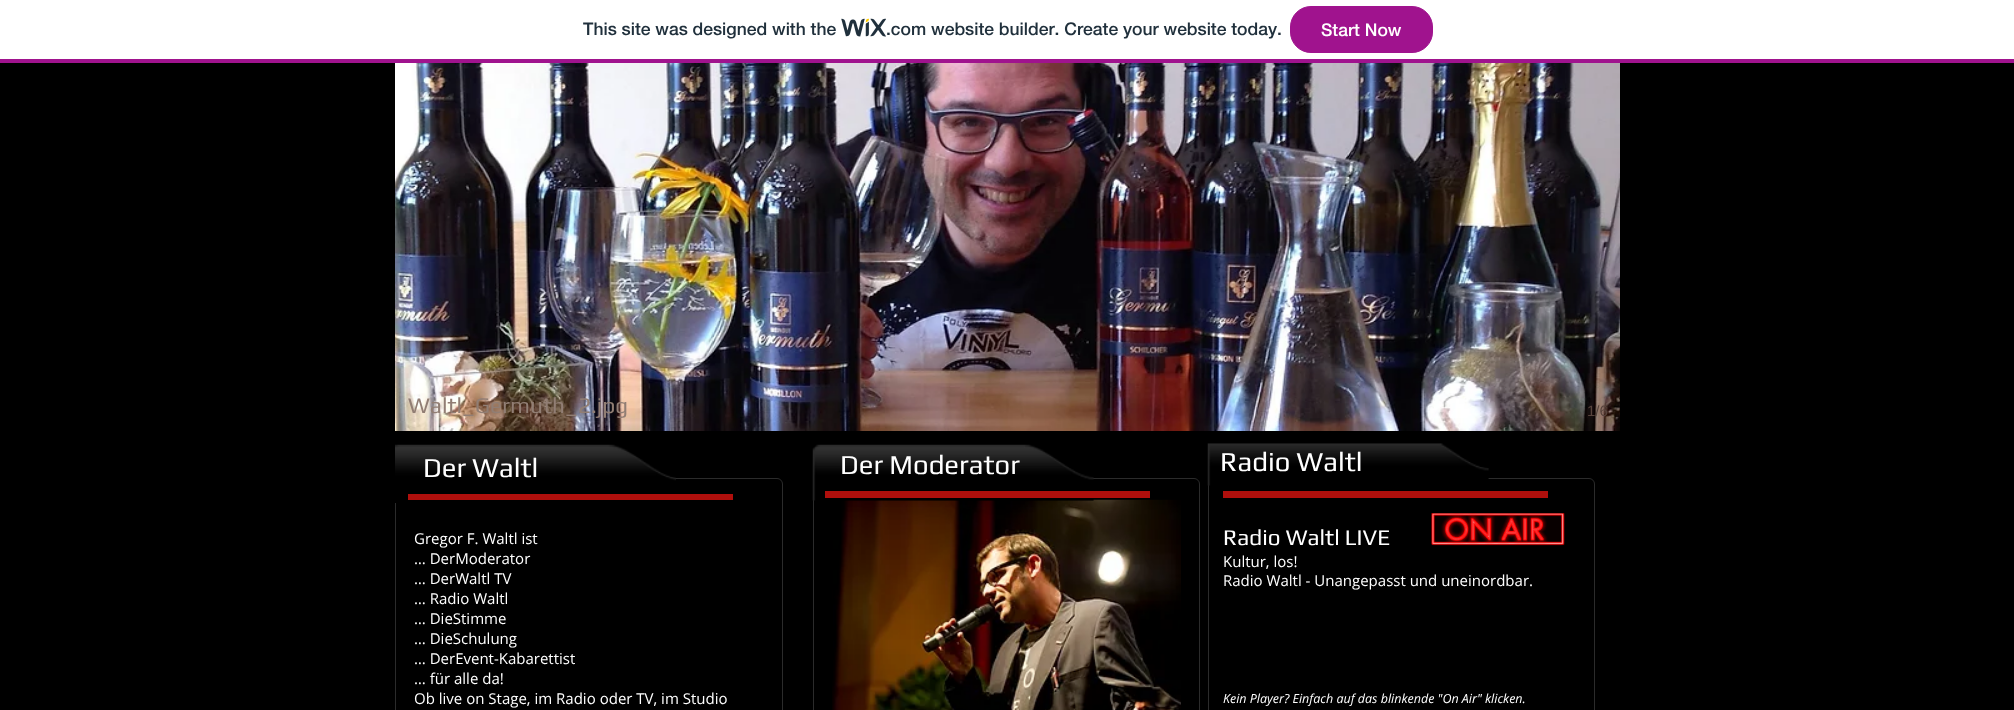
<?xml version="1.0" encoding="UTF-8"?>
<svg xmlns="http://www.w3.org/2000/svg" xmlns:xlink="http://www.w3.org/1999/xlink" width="2014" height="710">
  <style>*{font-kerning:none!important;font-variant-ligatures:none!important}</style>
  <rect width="100%" height="100%" fill="#000000" />
  <rect width="2014" height="59" fill="#ffffff" />
  <rect y="59" width="2014" height="4" fill="#a0138e" />
  <image x="841" y="18" width="45" height="19" xlink:href="image1.png" />
  <rect x="1290.5" y="6.5" width="142" height="46" rx="20.5" fill="#a0138e" stroke="#a0138e" />
  <image x="395" y="63" width="1225" height="368" xlink:href="image2.png" />
  <rect x="813.5" y="478.5" width="386" height="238" rx="5.5" fill="none" stroke="#2b2b2b" />
  <image x="832" y="499" width="349" height="211" xlink:href="image4.png" />
  <image x="812" y="444" width="282" height="57" xlink:href="image3.png" />
  <rect x="825" y="491" width="325" height="7" fill="#af0f0c" />
  <rect x="1208.5" y="478.5" width="386" height="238" rx="5.5" fill="none" stroke="#2b2b2b" />
  <image x="1207" y="443" width="282" height="43" xlink:href="image5.png" />
  <rect x="395.5" y="478.5" width="387" height="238" rx="5.5" fill="none" stroke="#2b2b2b" />
  <image x="395" y="444" width="281" height="59" xlink:href="image6.png" />
  <rect x="408" y="494" width="325" height="6" fill="#af0f0c" />
  <rect x="1223" y="491" width="325" height="7" fill="#af0f0c" />
  <image x="1431" y="513" width="134" height="33" xlink:href="image7.png" />
  <text x="583" y="35" style="font-family: 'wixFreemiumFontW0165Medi'; font-size: 17.5px; font-weight: 500; fill: #20303c">This site was designed with the</text>
  <text x="886" y="35" style="font-family: 'wixFreemiumFontW0165Medi'; font-size: 17.5px; font-weight: 500; fill: #20303c">.com website builder. Create your website today.</text>
  <text x="1321" y="36" style="font-family: 'wixFreemiumFontW0165Medi'; font-size: 17.5px; font-weight: 500; fill: #ffffff">Start Now</text>
  <text x="408" y="413" style="font-family: Play; font-size: 22.5px; fill: #917e74">Waltl_Germuth_2.jpg</text>
  <text x="1587" y="416" style="font-family: Liberation Sans; font-size: 15px; fill: #57433c">1/6</text>
  <text x="423" y="477" style="font-family: Play; font-size: 27.5px; fill: #ffffff">Der Waltl</text>
  <text x="840" y="474" style="font-family: Play; font-size: 27.5px; fill: #ffffff">Der Moderator</text>
  <text x="1220" y="471" style="font-family: Play; font-size: 27.5px; fill: #ffffff">Radio Waltl</text>
  <text x="414" y="544" style="font-family: Open Sans; font-size: 15px; fill: #ffffff">Gregor F. Waltl ist</text>
  <text x="414" y="564" style="font-family: Open Sans; font-size: 15px; fill: #ffffff">… DerModerator</text>
  <text x="414" y="584" style="font-family: Open Sans; font-size: 15px; fill: #ffffff">… DerWaltl TV</text>
  <text x="414" y="604" style="font-family: Open Sans; font-size: 15px; fill: #ffffff">… Radio Waltl</text>
  <text x="414" y="624" style="font-family: Open Sans; font-size: 15px; fill: #ffffff">… DieStimme</text>
  <text x="414" y="644" style="font-family: Open Sans; font-size: 15px; fill: #ffffff">… DieSchulung</text>
  <text x="414" y="664" style="font-family: Open Sans; font-size: 15px; fill: #ffffff">… DerEvent-Kabarettist</text>
  <text x="414" y="684" style="font-family: Open Sans; font-size: 15px; fill: #ffffff">… für alle da!</text>
  <text x="414" y="704" style="font-family: Open Sans; font-size: 15px; fill: #ffffff">Ob live on Stage, im Radio oder TV, im Studio</text>
  <text x="1223" y="545" style="font-family: Play; font-size: 22.5px; fill: #ffffff">Radio Waltl LIVE</text>
  <text x="1223" y="567" style="font-family: Open Sans; font-size: 15px; fill: #ffffff">Kultur, los!</text>
  <text x="1223" y="586" style="font-family: Open Sans; font-size: 15px; fill: #ffffff">Radio Waltl - Unangepasst und uneinordbar.</text>
  <text x="1223" y="703" style="font-family: Open Sans; font-size: 12.5px; font-style: italic; fill: #ffffff">Kein Player? Einfach auf das blinkende "On Air" klicken.</text>
</svg>
